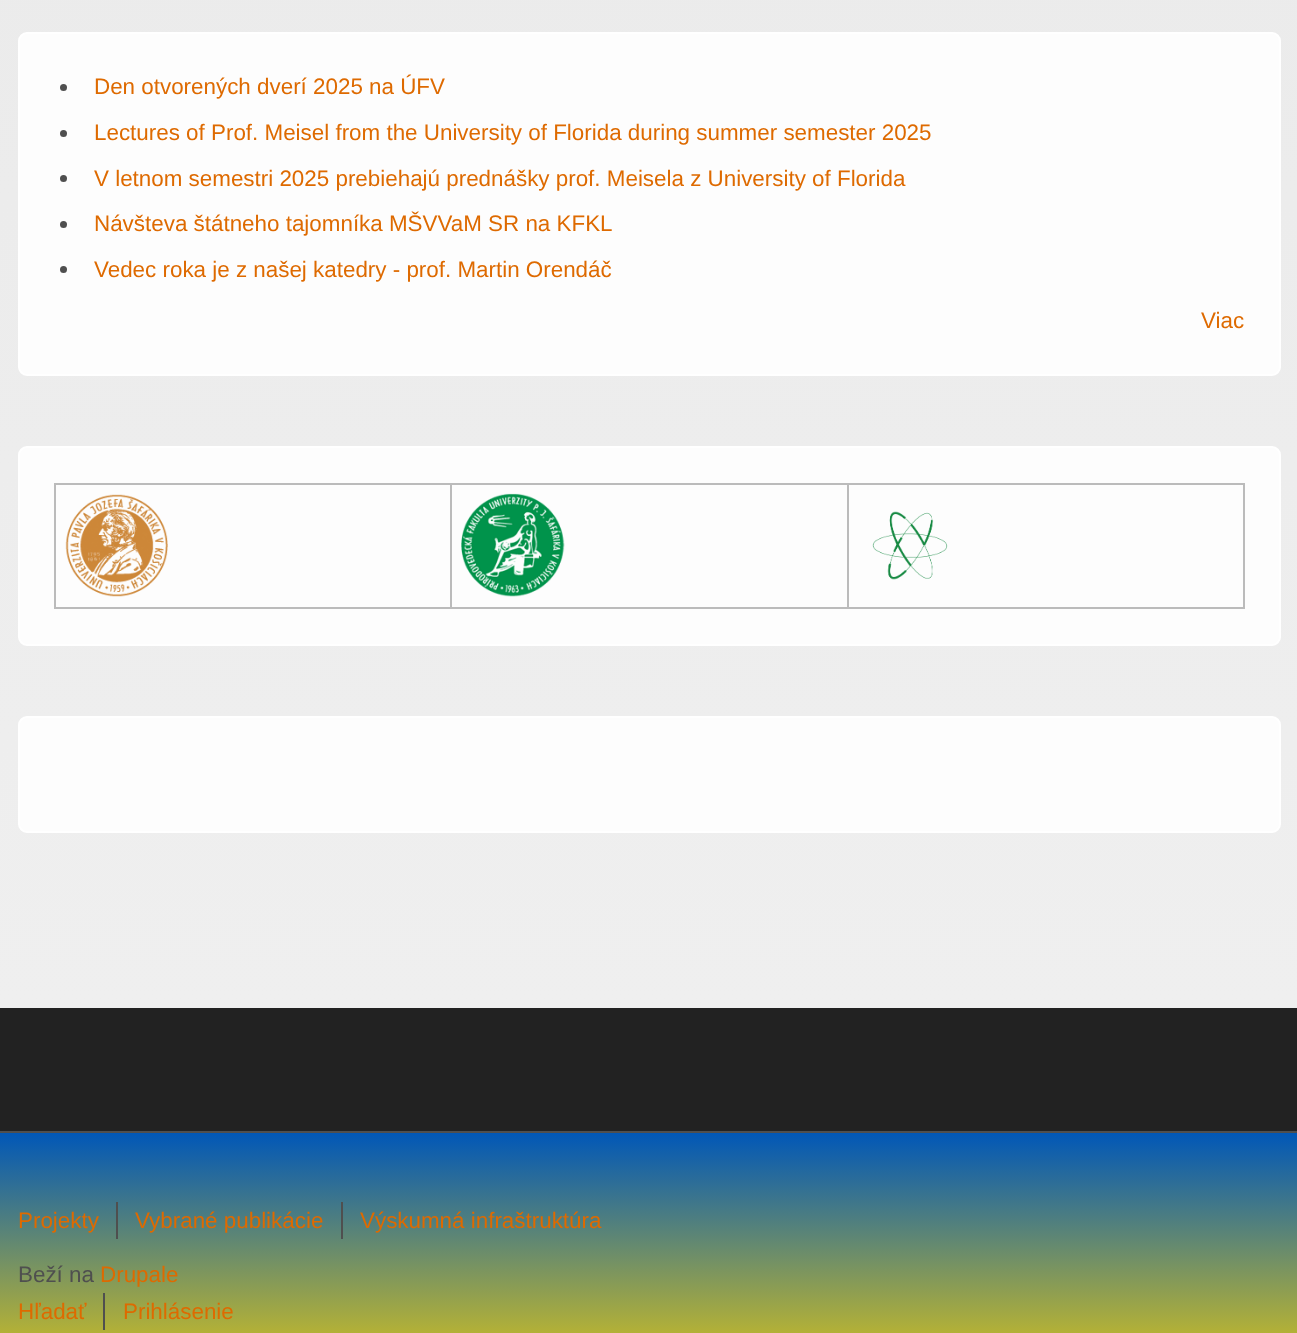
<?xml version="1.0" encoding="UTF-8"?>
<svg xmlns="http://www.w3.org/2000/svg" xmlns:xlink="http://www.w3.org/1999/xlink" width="1297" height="1333">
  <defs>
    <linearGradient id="g1" gradientUnits="userSpaceOnUse" x1="649" y1="-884" x2="649" y2="1008"><stop offset="0" stop-color="#e8e8e8" /><stop offset="1" stop-color="#efefef" /></linearGradient>
    <linearGradient id="g2" gradientUnits="userSpaceOnUse" x1="649" y1="1132" x2="649" y2="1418"><stop offset="0" stop-color="#0057b8" /><stop offset="1" stop-color="#ffd700" /></linearGradient>
  </defs>
  <rect width="100%" height="100%" fill="#ffffff" />
  <rect width="1297" height="1008" fill="url(#g1)" />
  <rect x="19" y="33" width="1261" height="342" rx="8" fill="#fdfdfd" stroke="#ffffff" stroke-width="2" />
  <circle cx="63.5" cy="87.5" r="3.5" fill="#4f4f4f" />
  <circle cx="63.5" cy="133.5" r="3.5" fill="#4f4f4f" />
  <circle cx="63.5" cy="178.5" r="3.5" fill="#4f4f4f" />
  <circle cx="63.5" cy="224.5" r="3.5" fill="#4f4f4f" />
  <circle cx="63.5" cy="269.5" r="3.5" fill="#4f4f4f" />
  <rect x="19" y="447" width="1261" height="198" rx="8" fill="#fdfdfd" stroke="#ffffff" stroke-width="2" />
  <rect x="847" y="483" width="397" height="2" fill="#bbbbbb" />
  <rect x="1243" y="483" width="2" height="126" fill="#bbbbbb" />
  <rect x="847" y="607" width="397" height="2" fill="#bbbbbb" />
  <rect x="847" y="483" width="2" height="126" fill="#bbbbbb" />
  <rect x="450" y="483" width="399" height="2" fill="#bbbbbb" />
  <rect x="450" y="607" width="399" height="2" fill="#bbbbbb" />
  <rect x="450" y="483" width="2" height="126" fill="#bbbbbb" />
  <rect x="54" y="483" width="398" height="2" fill="#bbbbbb" />
  <rect x="54" y="607" width="398" height="2" fill="#bbbbbb" />
  <rect x="54" y="483" width="2" height="126" fill="#bbbbbb" />
  <image x="65" y="494" width="103" height="103" xlink:href="image1.png" />
  <image x="461" y="493" width="104" height="104" xlink:href="image2.png" />
  <image x="872" y="511" width="76" height="69" xlink:href="image3.png" />
  <rect x="19" y="717" width="1261" height="115" rx="8" fill="#fdfdfd" stroke="#ffffff" stroke-width="2" />
  <rect y="1008" width="1297" height="123" fill="#222222" />
  <rect y="1133" width="1297" height="200" fill="url(#g2)" />
  <rect y="1131" width="1297" height="2" fill="#4f4f4f" />
  <rect x="116" y="1202" width="2" height="37" fill="#4f4f4f" />
  <rect x="341" y="1202" width="2" height="37" fill="#4f4f4f" />
  <rect x="103" y="1293" width="2" height="37" fill="#4f4f4f" />
  <text x="94" y="94" style="font-family: Liberation Sans; font-size: 22.4px; fill: #de6a00">Den otvorených dverí 2025 na ÚFV</text>
  <text x="94" y="140" style="font-family: Liberation Sans; font-size: 22.4px; fill: #de6a00">Lectures of Prof. Meisel from the University of Florida during summer semester 2025</text>
  <text x="94" y="186" style="font-family: Liberation Sans; font-size: 22.4px; fill: #de6a00">V letnom semestri 2025 prebiehajú prednášky prof. Meisela z University of Florida</text>
  <text x="94" y="231" style="font-family: Liberation Sans; font-size: 22.4px; fill: #de6a00">Návšteva štátneho tajomníka MŠVVaM SR na KFKL</text>
  <text x="94" y="277" style="font-family: Liberation Sans; font-size: 22.4px; fill: #de6a00">Vedec roka je z našej katedry - prof. Martin Orendáč</text>
  <text x="1201" y="328" style="font-family: Liberation Sans; font-size: 22.4px; fill: #de6a00">Viac</text>
  <text x="18" y="1228" style="font-family: Liberation Sans; font-size: 22.4px; fill: #de6a00">Projekty</text>
  <text x="135" y="1228" style="font-family: Liberation Sans; font-size: 22.4px; fill: #de6a00">Vybrané publikácie</text>
  <text x="360" y="1228" style="font-family: Liberation Sans; font-size: 22.4px; fill: #de6a00">Výskumná infraštruktúra</text>
  <text x="18" y="1282" style="font-family: Liberation Sans; font-size: 22.4px; fill: #4f4f4f">Beží na</text>
  <text x="100" y="1282" style="font-family: Liberation Sans; font-size: 22.4px; fill: #de6a00">Drupale</text>
  <text x="18" y="1319" style="font-family: Liberation Sans; font-size: 22.4px; fill: #de6a00">Hľadať</text>
  <text x="123" y="1319" style="font-family: Liberation Sans; font-size: 22.4px; fill: #de6a00">Prihlásenie</text>
</svg>
